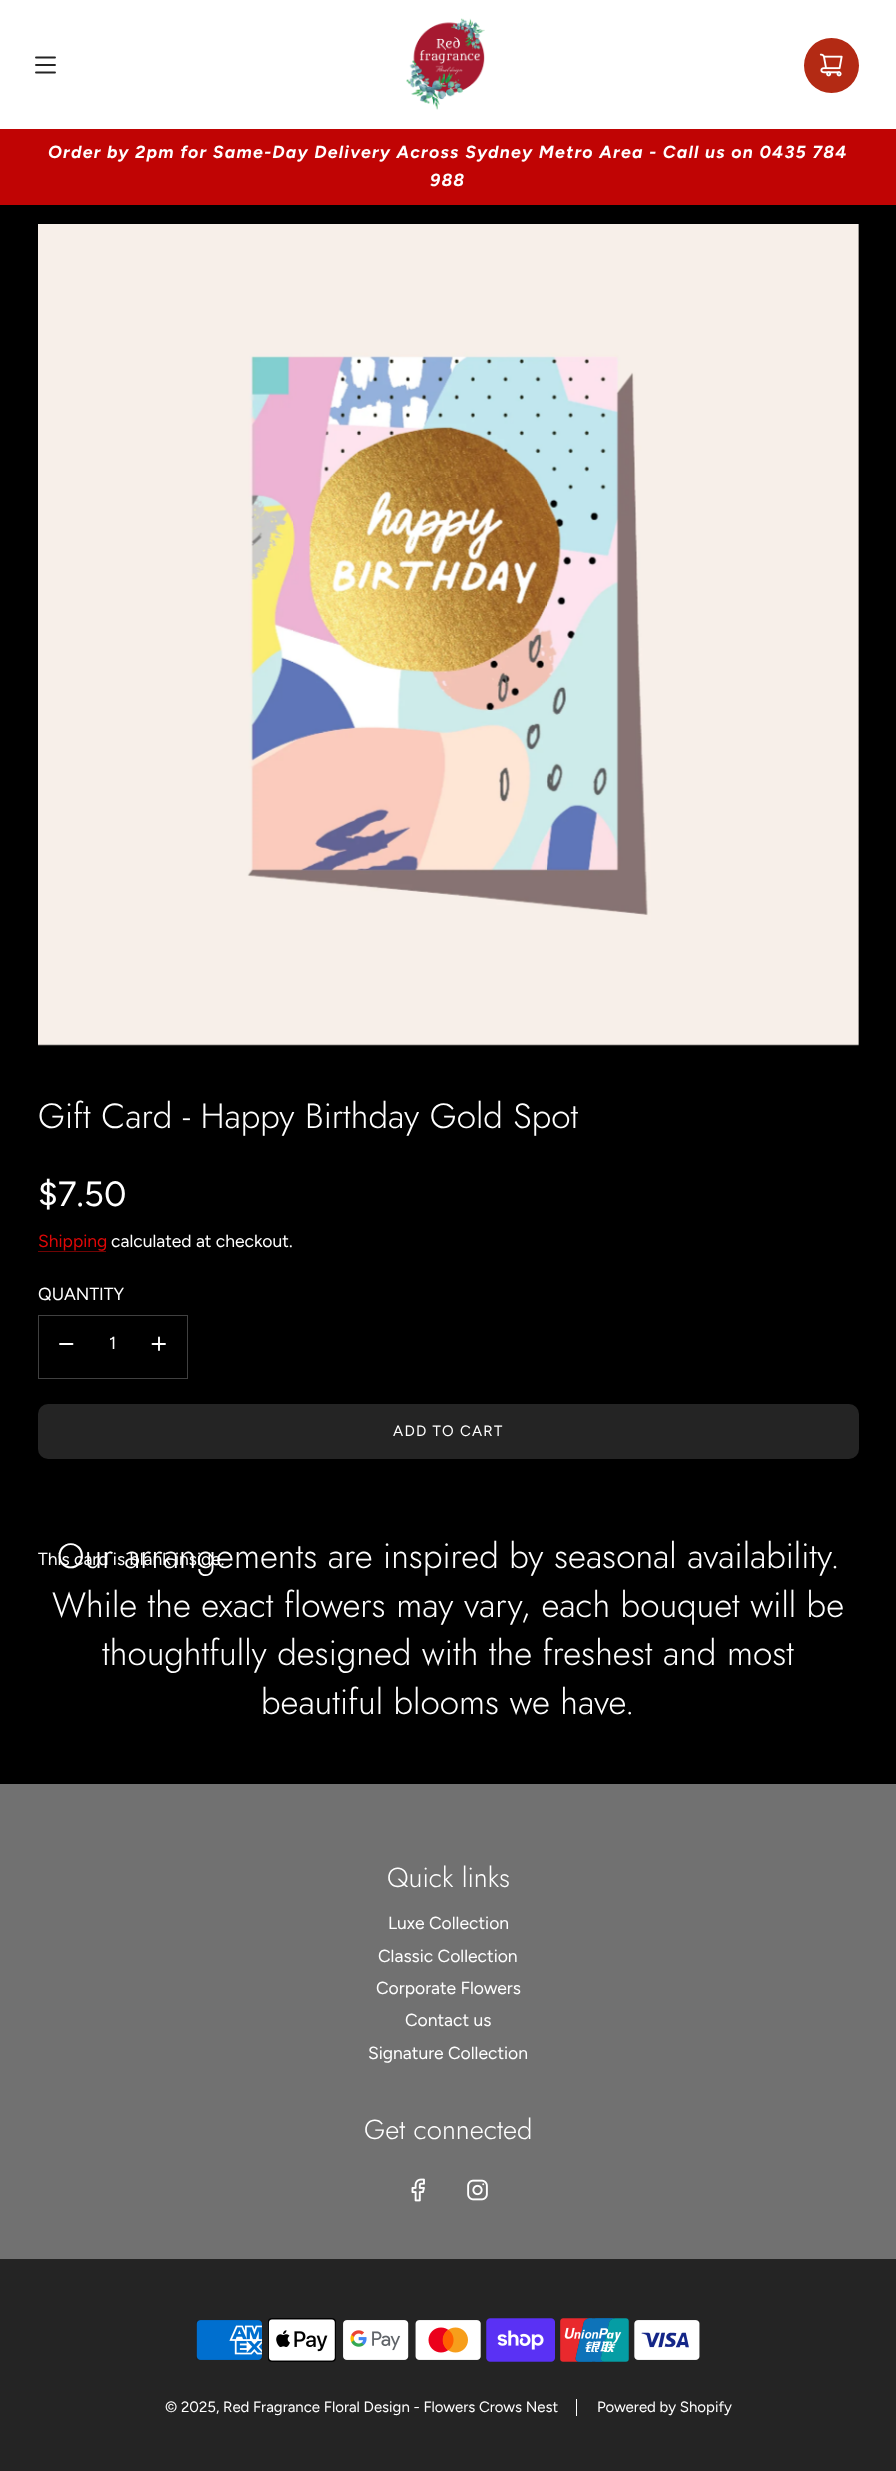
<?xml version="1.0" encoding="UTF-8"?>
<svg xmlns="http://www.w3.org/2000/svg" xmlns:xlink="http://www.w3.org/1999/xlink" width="896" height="2471">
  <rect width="100%" height="100%" fill="#000000" />
  <rect width="896" height="129" fill="#ffffff" />
  <path d="M 36 57.5 h 19 m -19 7.5 h 19 m -19 7.5 h 19" fill="none" stroke="#242424" stroke-width="1.9" stroke-linecap="round" stroke-linejoin="round" />
  <image x="406" y="18" width="79" height="92" xlink:href="image1.png" />
  <circle cx="831.5" cy="65.5" r="27.5" fill="#b32a14" />
  <image x="819" y="53" width="24" height="24" xlink:href="image2.png" />
  <rect y="129" width="896" height="76" fill="#c00404" />
  <image x="38" y="224" width="821" height="822" xlink:href="image3.png" />
  <rect x="38" y="1251" width="68" height="1" fill="#6f0404" />
  <rect x="38.5" y="1315.5" width="149" height="63" fill="none" stroke="#404040" />
  <path d="M 60 1344 h 12.5" fill="none" stroke="#ffffff" stroke-width="1.9" stroke-linecap="round" stroke-linejoin="round" />
  <path d="M 152.5 1344 h 6.5 m 0 0 h 6 m -6 0 v -6.5 m 0 6.5 v 6" fill="none" stroke="#ffffff" stroke-width="1.9" stroke-linecap="round" stroke-linejoin="round" />
  <rect x="38" y="1404" width="821" height="55" rx="10" fill="#242424" />
  <rect y="1784" width="896" height="475" fill="#717171" />
  <image x="411" y="2178" width="14" height="24" xlink:href="image4.png" />
  <image x="467" y="2179" width="21" height="22" xlink:href="image5.png" />
  <rect y="2259" width="896" height="212" fill="#242424" />
  <image x="196" y="2320" width="66" height="40" xlink:href="image6.png" />
  <image x="268" y="2318" width="68" height="44" xlink:href="image7.png" />
  <image x="343" y="2320" width="66" height="40" xlink:href="image8.png" />
  <image x="415" y="2320" width="66" height="40" xlink:href="image9.png" />
  <image x="486" y="2318" width="69" height="44" xlink:href="image10.png" />
  <image x="560" y="2318" width="69" height="44" xlink:href="image11.png" />
  <image x="634" y="2320" width="66" height="40" xlink:href="image12.png" />
  <rect x="576" y="2399" width="1" height="17" fill="#ffffff" />
  <text x="48" y="158" style="font-family: Figtree; font-size: 17.5px; font-weight: bold; font-style: italic; letter-spacing: 1.25px; fill: #ffffff">Order by 2pm for Same-Day Delivery Across Sydney Metro Area - Call us on 0435 784</text>
  <text x="430" y="186" style="font-family: Figtree; font-size: 17.5px; font-weight: bold; font-style: italic; letter-spacing: 1.25px; fill: #ffffff">988</text>
  <text x="38" y="1128" style="font-family: Jost; font-size: 35px; font-weight: 300; fill: #ffffff">Gift Card - Happy Birthday Gold Spot</text>
  <text x="38" y="1206" style="font-family: Figtree; font-size: 35px; fill: #ffffff">$7.50</text>
  <text x="38" y="1247" style="font-family: Figtree; font-size: 17.5px; fill: #de0707">Shipping</text>
  <text x="111" y="1247" style="font-family: Figtree; font-size: 17.5px; fill: #ffffff">calculated at checkout.</text>
  <text x="38" y="1300" style="font-family: Figtree; font-size: 17.5px; fill: #ffffff">QUANTITY</text>
  <text x="109" y="1349" style="font-family: Figtree; font-size: 17.5px; fill: #ffffff">1</text>
  <text x="393" y="1436" style="font-family: Figtree; font-size: 15px; letter-spacing: 1.25px; fill: #ffffff">ADD TO CART</text>
  <text x="38" y="1565" style="font-family: Figtree; font-size: 17.5px; fill: #ffffff">This card is blank inside.</text>
  <text x="57" y="1568" style="font-family: Jost; font-size: 35px; font-weight: 300; fill: #ffffff">Our arrangements are inspired by seasonal availability.</text>
  <text x="52" y="1617" style="font-family: Jost; font-size: 35px; font-weight: 300; fill: #ffffff">While the exact flowers may vary, each bouquet will be</text>
  <text x="102" y="1665" style="font-family: Jost; font-size: 35px; font-weight: 300; fill: #ffffff">thoughtfully designed with the freshest and most</text>
  <text x="261" y="1714" style="font-family: Jost; font-size: 35px; font-weight: 300; fill: #ffffff">beautiful blooms we have.</text>
  <text x="387" y="1887" style="font-family: Jost; font-size: 27.5px; font-weight: 300; fill: #ffffff">Quick links</text>
  <text x="388" y="1929" style="font-family: Figtree; font-size: 17.5px; fill: #ffffff">Luxe Collection</text>
  <text x="378" y="1962" style="font-family: Figtree; font-size: 17.5px; fill: #ffffff">Classic Collection</text>
  <text x="376" y="1994" style="font-family: Figtree; font-size: 17.5px; fill: #ffffff">Corporate Flowers</text>
  <text x="405" y="2026" style="font-family: Figtree; font-size: 17.5px; fill: #ffffff">Contact us</text>
  <text x="368" y="2059" style="font-family: Figtree; font-size: 17.5px; fill: #ffffff">Signature Collection</text>
  <text x="364" y="2139" style="font-family: Jost; font-size: 27.5px; font-weight: 300; fill: #ffffff">Get connected</text>
  <text x="165" y="2412" style="font-family: Figtree; font-size: 15px; fill: #ffffff">© 2025, Red Fragrance Floral Design - Flowers Crows Nest</text>
  <text x="597" y="2412" style="font-family: Figtree; font-size: 15px; fill: #ffffff">Powered by Shopify</text>
</svg>
